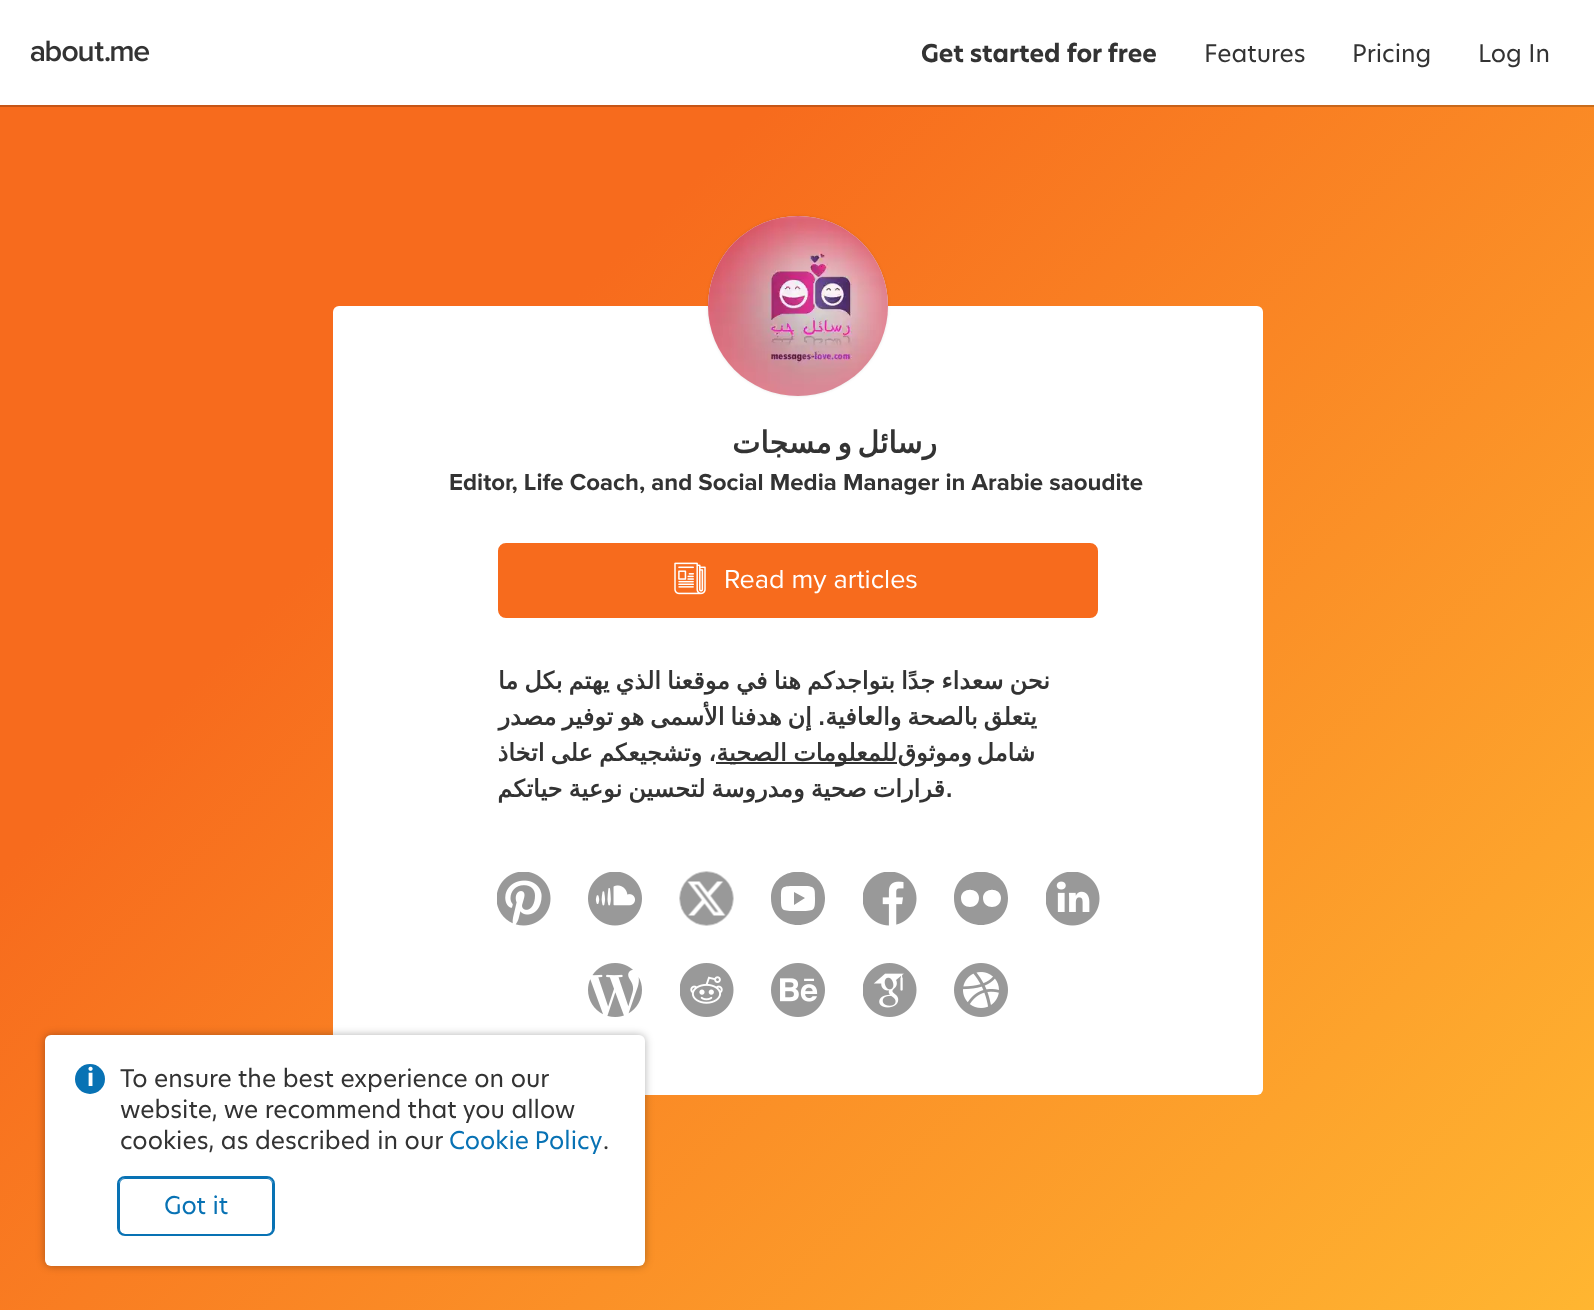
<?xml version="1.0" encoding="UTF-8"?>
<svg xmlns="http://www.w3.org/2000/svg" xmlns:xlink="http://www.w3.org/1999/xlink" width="1594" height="1310">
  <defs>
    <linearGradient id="g1" gradientUnits="userSpaceOnUse" x1="71" y1="-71" x2="1524" y2="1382"><stop offset="0" stop-color="#f76b1d" /><stop offset="0.3" stop-color="#f76b1d" /><stop offset="1" stop-color="#ffb631" /></linearGradient>
    <clipPath id="clip1"><rect x="771" y="872" width="54" height="54" /></clipPath>
    <clipPath id="clip2"><rect x="954" y="872" width="54" height="54" /></clipPath>
  </defs>
  <rect width="100%" height="100%" fill="#ffffff" />
  <rect y="105" width="1594" height="1205" fill="url(#g1)" />
  <path d="M 0 105 v 2 h 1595 v -105 h -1 v 103 z" fill="#000000" fill-opacity="0.2" />
  <image x="30" y="40" width="120" height="22" xlink:href="image1.png" />
  <rect x="333" y="306" width="930" height="789" rx="6" fill="#ffffff" />
  <rect x="708" y="216" width="180" height="180" rx="90" fill="#000000" fill-opacity="0.1" filter="blur(1.5px)" />
  <circle cx="798" cy="306" r="90" fill="#eeeeee" />
  <image x="708" y="216" width="180" height="180" xlink:href="image2.png" />
  <rect x="499" y="544" width="598" height="73" rx="7" fill="#f76b1d" stroke="#f76b1d" stroke-width="2" />
  <image x="674" y="562" width="32" height="33" xlink:href="image3.png" />
  <rect x="716" y="762" width="181" height="2" fill="#333333" />
  <image x="497" y="872" width="54" height="54" xlink:href="image4.png" />
  <image x="588" y="872" width="54" height="54" xlink:href="image5.png" />
  <image x="679" y="871" width="55" height="55" xlink:href="image6.png" />
  <g clip-path="url(#clip1)">
    <path d="M 825 898 c 0 36 -54 36 -54 0 c 0 -35 54 -35 54 0 z m -10 0 c 0 -12 0 -12 -17 -12 c -17 0 -17 0 -17 12 c 0 13 0 13 17 13 c 17 0 17 0 17 -13 z m -21 -6 l 11 6 l -11 7 z" fill="#999999" />
  </g>
  <image x="863" y="872" width="54" height="54" xlink:href="image7.png" />
  <g clip-path="url(#clip2)">
    <path d="M 1008 898 c 0 36 -54 36 -54 0 c 0 -35 54 -35 54 0 z m -29 0 c 0 -11 -18 -11 -18 0 c 0 12 18 12 18 0 z m 22 0 c 0 -11 -18 -11 -18 0 c 0 12 18 12 18 0 z" fill="#999999" />
  </g>
  <image x="1046" y="872" width="54" height="54" xlink:href="image8.png" />
  <image x="588" y="963" width="54" height="54" xlink:href="image9.png" />
  <image x="680" y="963" width="54" height="54" xlink:href="image10.png" />
  <image x="771" y="963" width="54" height="54" xlink:href="image11.png" />
  <image x="863" y="963" width="54" height="54" xlink:href="image12.png" />
  <image x="954" y="963" width="54" height="54" xlink:href="image13.png" />
  <rect x="45" y="1035" width="600" height="231" rx="6" fill="#000000" fill-opacity="0.3" filter="blur(4px)" />
  <rect x="45" y="1035" width="600" height="231" rx="6" fill="#ffffff" />
  <circle cx="90" cy="1079" r="15" fill="#0872b4" />
  <image x="88" y="1066" width="5" height="20" xlink:href="image14.png" />
  <rect x="119.5" y="1178.5" width="153" height="56" rx="5.5" fill="none" stroke="#0872b4" />
  <rect x="118" y="1177" width="156" height="58" rx="7" fill="none" stroke="#0872b4" stroke-width="2" />
  <text x="921" y="62" style="font-family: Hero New; font-size: 24px; font-weight: bold; fill: #333333">Get started for free</text>
  <text x="1204" y="62" style="font-family: Hero New; font-size: 24px; fill: #333333">Features</text>
  <text x="1352" y="62" style="font-family: Hero New; font-size: 24px; fill: #333333">Pricing</text>
  <text x="1478" y="62" style="font-family: Hero New; font-size: 24px; fill: #333333">Log In</text>
  <text x="937" y="453" word-spacing="-4" style="font-family: DejaVu Sans; font-size: 30px; font-weight: bold; letter-spacing: 3px; direction: rtl; fill: #333333">رسائل و مسجات</text>
  <text x="449" y="490" style="font-family: Proxima Nova; font-size: 24px; font-weight: bold; fill: #333333">Editor, Life Coach, and Social Media Manager in Arabie saoudite</text>
  <text x="724" y="588" style="font-family: Proxima Nova; font-size: 27px; fill: #ffffff">Read my articles</text>
  <text x="1050" y="689" word-spacing="-1.5" style="font-family: DejaVu Sans; font-size: 24px; font-weight: bold; direction: rtl; fill: #333333">نحن سعداء جدًا بتواجدكم هنا في موقعنا الذي يهتم بكل ما</text>
  <text x="1037" y="725" word-spacing="-1.75" style="font-family: DejaVu Sans; font-size: 24px; font-weight: bold; direction: rtl; fill: #333333">يتعلق بالصحة والعافية. إن هدفنا الأسمى هو توفير مصدر</text>
  <text x="716" y="761" word-spacing="-1.5" style="font-family: DejaVu Sans; font-size: 24px; font-weight: bold; direction: rtl; fill: #333333">، وتشجيعكم على اتخاذ</text>
  <text x="897" y="761" word-spacing="-1" style="font-family: DejaVu Sans; font-size: 24px; font-weight: bold; direction: rtl; fill: #333333">للمعلومات الصحية</text>
  <text x="1035" y="761" word-spacing="-3" style="font-family: DejaVu Sans; font-size: 24px; font-weight: bold; direction: rtl; fill: #333333">شامل وموثوق</text>
  <text x="945" y="797" word-spacing="-1.5" style="font-family: DejaVu Sans; font-size: 24px; font-weight: bold; direction: rtl; fill: #333333">قرارات صحية ومدروسة لتحسين نوعية حياتكم</text>
  <text x="945" y="797" style="font-family: DejaVu Sans; font-size: 24px; font-weight: bold; fill: #333333">.</text>
  <text x="120" y="1087" style="font-family: Hero New; font-size: 24px; fill: #333333">To ensure the best experience on our</text>
  <text x="120" y="1118" style="font-family: Hero New; font-size: 24px; fill: #333333">website, we recommend that you allow</text>
  <text x="120" y="1149" style="font-family: Hero New; font-size: 24px; fill: #333333">cookies, as described in our</text>
  <text x="449" y="1149" word-spacing="-1" style="font-family: Hero New; font-size: 24px; fill: #0872b4">Cookie Policy</text>
  <text x="603" y="1149" style="font-family: Hero New; font-size: 24px; fill: #333333">.</text>
  <text x="164" y="1214" style="font-family: Hero New; font-size: 24px; fill: #0872b4">Got it</text>
</svg>
